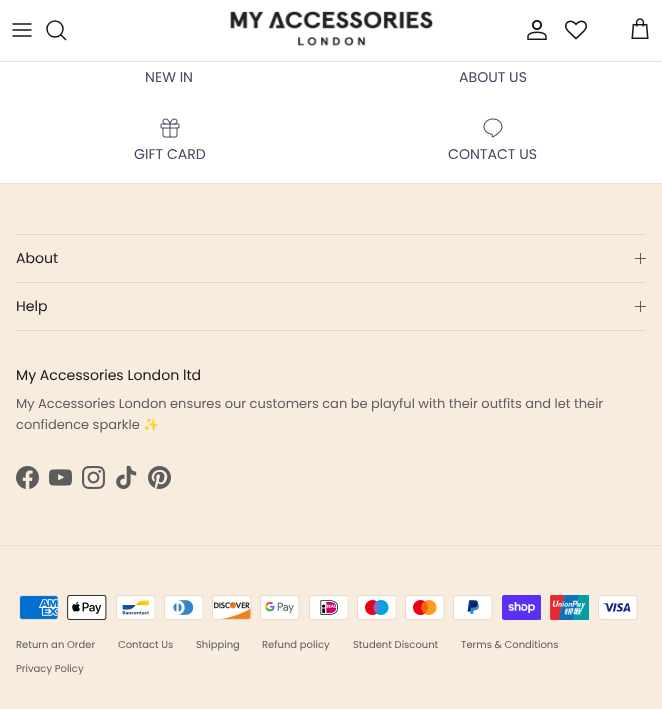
<?xml version="1.0" encoding="UTF-8"?>
<svg xmlns="http://www.w3.org/2000/svg" xmlns:xlink="http://www.w3.org/1999/xlink" width="662" height="709">
  <style>*{font-kerning:none!important;font-variant-ligatures:none!important}</style>
  <rect width="100%" height="100%" fill="#ffffff" />
  <rect y="61" width="662" height="1" fill="#dfe3e8" />
  <path d="M 13 30 h 18 m -18 -6 h 18 m -18 12 h 18" fill="none" stroke="#171717" stroke-width="1.5" stroke-linecap="round" stroke-linejoin="round" />
  <circle cx="55" cy="29" r="8" fill="none" stroke="#171717" stroke-width="1.5" />
  <path d="M 61 35 l 4.5 4.5" fill="none" stroke="#171717" stroke-width="1.5" stroke-linecap="square" />
  <image x="230" y="11" width="203" height="35" xlink:href="image1.png" />
  <image x="527" y="20" width="20" height="20" xlink:href="image2.png" />
  <image x="565" y="20" width="22" height="20" xlink:href="image3.png" />
  <image x="631" y="18" width="18" height="21" xlink:href="image4.png" />
  <image x="160" y="118" width="20" height="20" xlink:href="image5.png" />
  <image x="483" y="118" width="20" height="20" xlink:href="image6.png" />
  <rect y="184" width="662" height="525" fill="#f7ecde" />
  <rect y="183" width="662" height="1" fill="#efdfc7" />
  <rect x="16" y="234" width="630" height="1" fill="#e0d6cb" />
  <rect x="640" y="253" width="1" height="11" fill="#5c5c5c" />
  <rect x="635" y="258" width="11" height="1" fill="#5c5c5c" />
  <rect x="16" y="282" width="630" height="1" fill="#e0d6cb" />
  <rect x="16" y="330" width="630" height="1" fill="#e0d6cb" />
  <rect x="640" y="301" width="1" height="11" fill="#5c5c5c" />
  <rect x="635" y="306" width="11" height="1" fill="#5c5c5c" />
  <image x="16" y="466" width="23" height="23" xlink:href="image7.png" />
  <image x="49" y="469" width="23" height="17" xlink:href="image8.png" />
  <image x="82" y="466" width="23" height="23" xlink:href="image9.png" />
  <image x="116" y="466" width="21" height="23" xlink:href="image10.png" />
  <image x="148" y="466" width="23" height="23" xlink:href="image11.png" />
  <rect y="545" width="662" height="1" fill="#efdfc7" />
  <image x="19" y="595" width="40" height="25" xlink:href="image12.png" />
  <image x="67" y="595" width="40" height="25" xlink:href="image13.png" />
  <image x="116" y="595" width="39" height="25" xlink:href="image14.png" />
  <image x="164" y="595" width="39" height="25" xlink:href="image15.png" />
  <image x="212" y="595" width="40" height="25" xlink:href="image16.png" />
  <image x="260" y="595" width="40" height="25" xlink:href="image17.png" />
  <image x="309" y="595" width="39" height="25" xlink:href="image18.png" />
  <image x="357" y="595" width="39" height="25" xlink:href="image19.png" />
  <image x="405" y="595" width="40" height="25" xlink:href="image20.png" />
  <image x="453" y="595" width="40" height="25" xlink:href="image21.png" />
  <image x="502" y="595" width="39" height="25" xlink:href="image22.png" />
  <image x="550" y="595" width="39" height="25" xlink:href="image23.png" />
  <image x="598" y="595" width="40" height="25" xlink:href="image24.png" />
  <text x="145" y="82" style="font-family: Poppins; font-size: 14.1px; fill: #454564">NEW IN</text>
  <text x="459" y="82" style="font-family: Poppins; font-size: 14.1px; fill: #454564">ABOUT US</text>
  <text x="134" y="159" style="font-family: Poppins; font-size: 14.1px; fill: #454564">GIFT CARD</text>
  <text x="448" y="159" style="font-family: Poppins; font-size: 14.1px; fill: #454564">CONTACT US</text>
  <text x="16" y="263" style="font-family: Poppins; font-size: 14.1px; fill: #171717">About</text>
  <text x="16" y="311" style="font-family: Poppins; font-size: 14.1px; fill: #171717">Help</text>
  <text x="16" y="380" style="font-family: Poppins; font-size: 14.1px; fill: #171717">My Accessories London ltd</text>
  <text x="16" y="408" style="font-family: Poppins; font-size: 13px; fill: #5c5c5c">My Accessories London ensures our customers can be playful with their outfits and let their</text>
  <text x="16" y="429" style="font-family: Poppins; font-size: 13px; fill: #5c5c5c">confidence sparkle</text>
  <text x="143" y="429" style="font-family: Noto Color Emoji; font-size: 13px; fill: #5c5c5c">✨</text>
  <text x="16" y="648" style="font-family: Poppins; font-size: 10px; fill: #5c5c5c">Return an Order</text>
  <text x="118" y="648" style="font-family: Poppins; font-size: 10px; fill: #5c5c5c">Contact Us</text>
  <text x="196" y="648" style="font-family: Poppins; font-size: 10px; fill: #5c5c5c">Shipping</text>
  <text x="262" y="648" style="font-family: Poppins; font-size: 10px; fill: #5c5c5c">Refund policy</text>
  <text x="353" y="648" style="font-family: Poppins; font-size: 10px; fill: #5c5c5c">Student Discount</text>
  <text x="461" y="648" style="font-family: Poppins; font-size: 10px; fill: #5c5c5c">Terms &amp; Conditions</text>
  <text x="16" y="672" style="font-family: Poppins; font-size: 10px; fill: #5c5c5c">Privacy Policy</text>
</svg>
